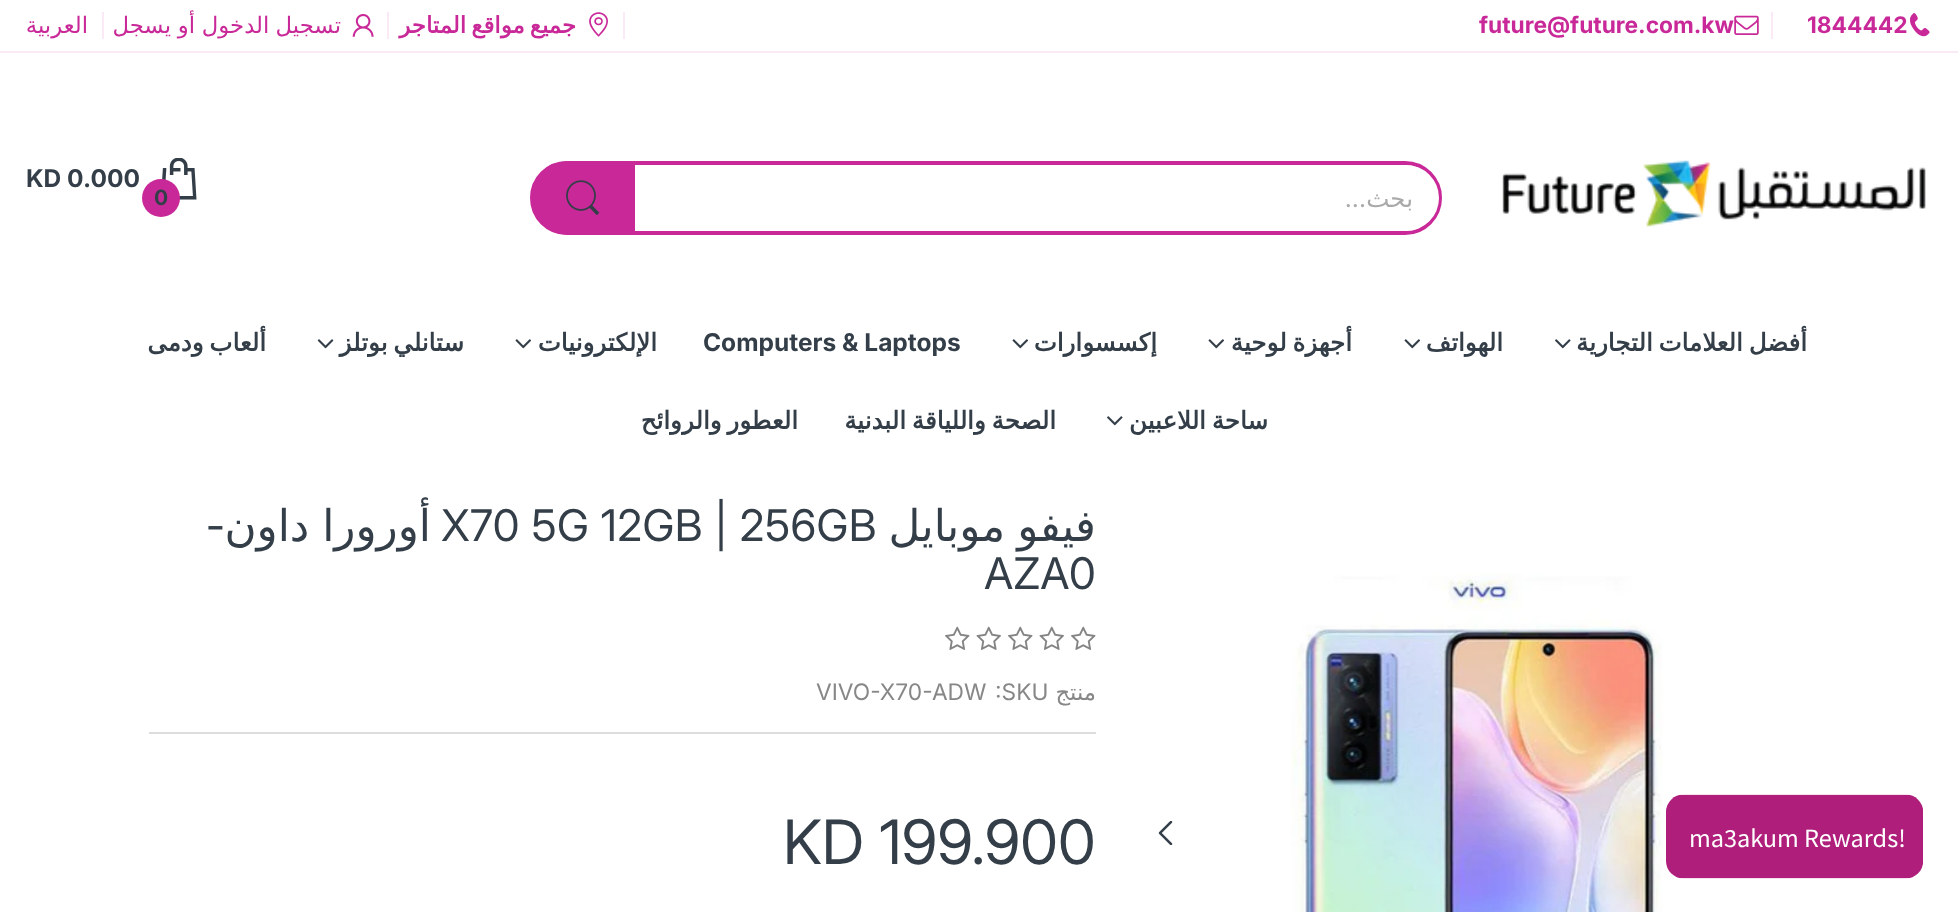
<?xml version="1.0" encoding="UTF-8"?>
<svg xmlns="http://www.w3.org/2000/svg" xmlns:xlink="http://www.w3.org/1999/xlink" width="1958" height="912">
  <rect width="100%" height="100%" fill="#ffffff" />
  <rect y="51" width="1958" height="2" fill="#faeaf5" />
  <image x="1910" y="13" width="20" height="24" xlink:href="image1.png" />
  <rect x="1771" y="12" width="2" height="27" fill="#faeaf5" />
  <image x="1734" y="15" width="25" height="20" xlink:href="image2.png" />
  <rect x="623" y="12" width="2" height="27" fill="#faeaf5" />
  <image x="589" y="12" width="19" height="25" xlink:href="image3.png" />
  <rect x="387" y="12" width="2" height="27" fill="#faeaf5" />
  <image x="352" y="14" width="22" height="23" xlink:href="image4.png" />
  <rect x="102" y="12" width="2" height="27" fill="#faeaf5" />
  <image x="1502" y="160" width="424" height="68" xlink:href="image5.png" />
  <rect x="534" y="163" width="906" height="70" rx="35" fill="none" stroke="#c92998" stroke-width="4" />
  <rect x="536" y="165" width="903" height="66" rx="33" fill="#ffffff" />
  <path d="M 567 162 h 67 v 72 h -67 c -20 0 -36 -16 -36 -36 c 0 -20 16 -36 36 -36 z" fill="#c92998" stroke="#c92998" stroke-width="2" />
  <image x="566" y="180" width="34" height="35" xlink:href="image6.png" />
  <image x="162" y="158" width="35" height="42" xlink:href="image7.png" />
  <circle cx="161" cy="198" r="19" fill="#c92998" />
  <image x="1555" y="339" width="16" height="10" xlink:href="image8.png" />
  <image x="1404" y="339" width="16" height="10" xlink:href="image9.png" />
  <image x="1208" y="339" width="16" height="10" xlink:href="image9.png" />
  <image x="1012" y="339" width="16" height="10" xlink:href="image9.png" />
  <image x="515" y="339" width="16" height="10" xlink:href="image9.png" />
  <image x="317" y="339" width="17" height="10" xlink:href="image10.png" />
  <image x="1107" y="416" width="16" height="10" xlink:href="image8.png" />
  <image x="1291" y="573" width="372" height="339" xlink:href="image11.png" />
  <image x="1158" y="821" width="15" height="24" xlink:href="image12.png" />
  <rect x="149" y="732" width="947" height="2" fill="#dddddd" />
  <image x="1071" y="626" width="25" height="24" xlink:href="image13.png" />
  <image x="1039" y="626" width="25" height="24" xlink:href="image14.png" />
  <image x="1008" y="626" width="25" height="24" xlink:href="image13.png" />
  <image x="976" y="626" width="25" height="24" xlink:href="image14.png" />
  <image x="945" y="626" width="25" height="24" xlink:href="image13.png" />
  <image x="1666" y="794" width="257" height="85" xlink:href="image15.png" />
  <text x="1807" y="33" style="font-family: Inter; font-size: 22.75px; font-weight: bold; fill: #c92998">1844442</text>
  <text x="1479" y="33" style="font-family: Inter; font-size: 22.75px; font-weight: bold; fill: #c92998">future@future.com.kw</text>
  <text x="576" y="33" word-spacing="-2" style="font-family: DejaVu Sans; font-size: 22.75px; font-weight: bold; direction: rtl; fill: #c92998">جميع مواقع المتاجر</text>
  <text x="341" y="33" word-spacing="-1" style="font-family: DejaVu Sans; font-size: 22.75px; direction: rtl; fill: #c92998">تسجيل الدخول</text>
  <text x="195" y="33" style="font-family: DejaVu Sans; font-size: 22.75px; direction: rtl; fill: #c92998">أو</text>
  <text x="171" y="33" style="font-family: DejaVu Sans; font-size: 22.75px; direction: rtl; fill: #c92998">يسجل</text>
  <text x="88" y="33" style="font-family: DejaVu Sans; font-size: 22.75px; direction: rtl; fill: #c92998">العربية</text>
  <text x="1413" y="207" style="font-family: DejaVu Sans; font-size: 24.5px; direction: rtl; fill: #a9a9a9">بحث</text>
  <text x="1366" y="207" style="font-family: Inter; font-size: 24.5px; direction: rtl; fill: #a9a9a9">...</text>
  <text x="26" y="187" style="font-family: Inter; font-size: 24.5px; font-weight: bold; fill: #333e48">KD 0.000</text>
  <text x="154" y="205" style="font-family: Inter; font-size: 21px; font-weight: bold; fill: #333e48">0</text>
  <text x="1807" y="351" word-spacing="-2" style="font-family: DejaVu Sans; font-size: 24.5px; font-weight: bold; direction: rtl; fill: #333e48">أفضل العلامات التجارية</text>
  <text x="1503" y="351" style="font-family: DejaVu Sans; font-size: 24.5px; font-weight: bold; direction: rtl; fill: #333e48">الهواتف</text>
  <text x="1352" y="351" word-spacing="-2" style="font-family: DejaVu Sans; font-size: 24.5px; font-weight: bold; direction: rtl; fill: #333e48">أجهزة لوحية</text>
  <text x="1157" y="351" style="font-family: DejaVu Sans; font-size: 24.5px; font-weight: bold; direction: rtl; fill: #333e48">إكسسوارات</text>
  <text x="703" y="351" style="font-family: Inter; font-size: 24.5px; font-weight: bold; fill: #333e48">Computers &amp; Laptops</text>
  <text x="657" y="351" style="font-family: DejaVu Sans; font-size: 24.5px; font-weight: bold; direction: rtl; fill: #333e48">الإلكترونيات</text>
  <text x="464" y="351" word-spacing="-2" style="font-family: DejaVu Sans; font-size: 24.5px; font-weight: bold; direction: rtl; fill: #333e48">ستانلي بوتلز</text>
  <text x="266" y="351" word-spacing="-2" style="font-family: DejaVu Sans; font-size: 24.5px; font-weight: bold; direction: rtl; fill: #333e48">ألعاب ودمى</text>
  <text x="1268" y="429" word-spacing="-2" style="font-family: DejaVu Sans; font-size: 24.5px; font-weight: bold; direction: rtl; fill: #333e48">ساحة اللاعبين</text>
  <text x="1056" y="429" word-spacing="-2" style="font-family: DejaVu Sans; font-size: 24.5px; font-weight: bold; direction: rtl; fill: #333e48">الصحة واللياقة البدنية</text>
  <text x="798" y="429" word-spacing="-2" style="font-family: DejaVu Sans; font-size: 24.5px; font-weight: bold; direction: rtl; fill: #333e48">العطور والروائح</text>
  <text x="1096" y="541" word-spacing="-2" style="font-family: DejaVu Sans; font-size: 43.75px; direction: rtl; fill: #333e48">فيفو موبايل</text>
  <text x="441" y="541" style="font-family: 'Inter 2'; font-size: 43.75px; fill: #333e48">X70 5G 12GB | 256GB</text>
  <text x="431" y="541" word-spacing="-1" style="font-family: DejaVu Sans; font-size: 43.75px; direction: rtl; fill: #333e48">أورورا داون</text>
  <text x="225" y="541" style="font-family: 'Inter 2'; font-size: 43.75px; direction: rtl; fill: #333e48">-</text>
  <text x="984" y="589" style="font-family: 'Inter 2'; font-size: 43.75px; fill: #333e48">AZA0</text>
  <text x="1096" y="700" style="font-family: DejaVu Sans; font-size: 22.75px; direction: rtl; fill: #878787">منتج</text>
  <text x="995" y="700" style="font-family: Inter; font-size: 22.75px; fill: #878787">:SKU</text>
  <text x="816" y="700" style="font-family: Inter; font-size: 22.75px; fill: #878787">VIVO-X70-ADW</text>
  <text x="783" y="864" style="font-family: 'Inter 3'; font-size: 61.25px; fill: #333e48">KD 199.900</text>
</svg>
